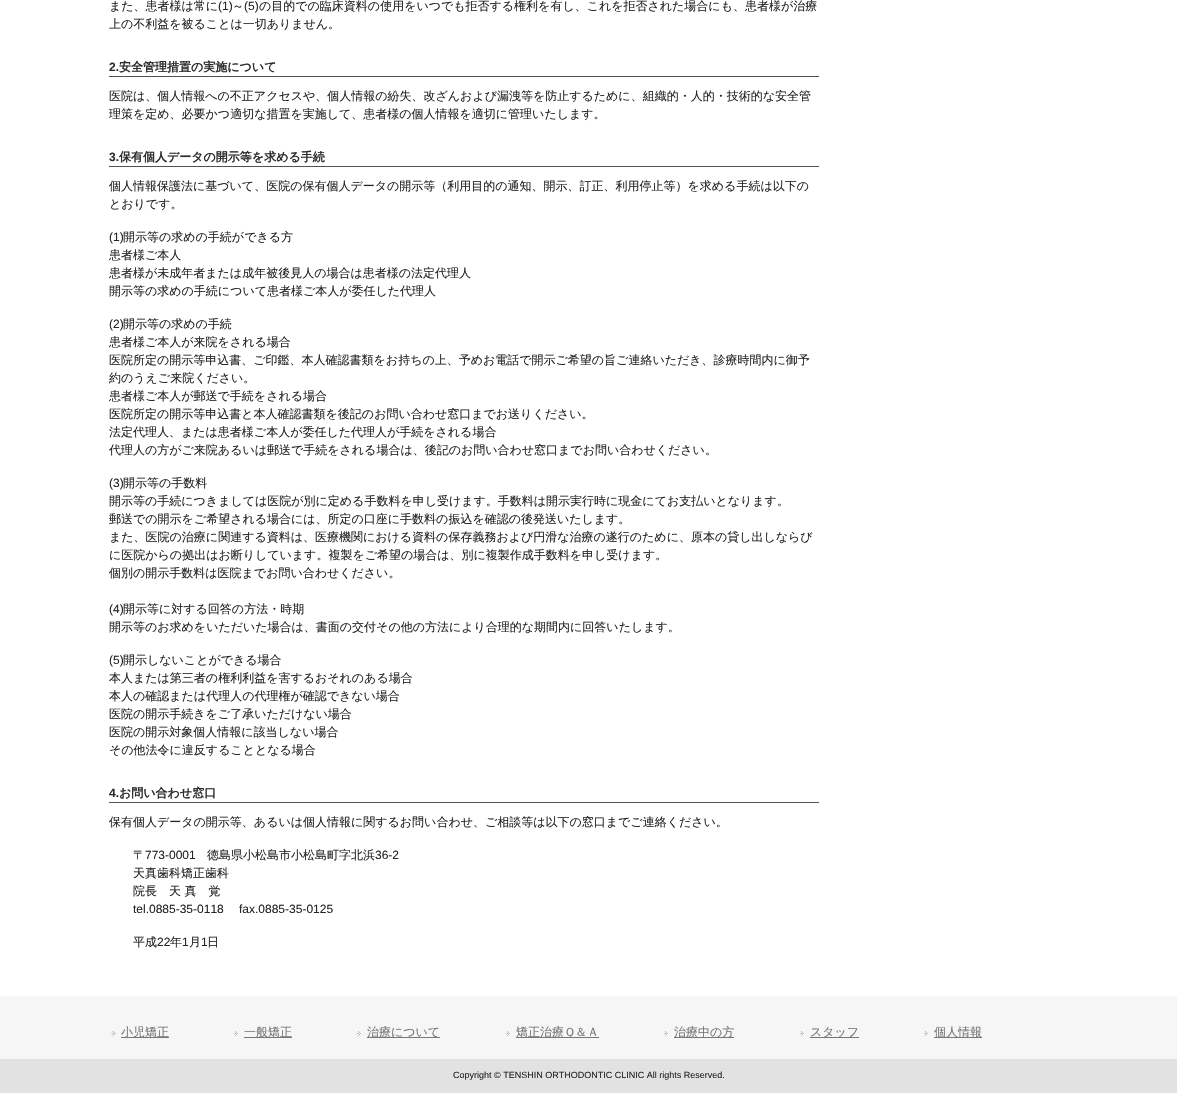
void draw(SkCanvas* canvas) {
  SkPaint paint;
  paint.setAntiAlias(true);
  auto face = [&](const char* family, int weight, float size, bool italic = false) {
    SkFontStyle style(weight, SkFontStyle::kNormal_Width,
      italic ? SkFontStyle::kItalic_Slant : SkFontStyle::kUpright_Slant);
    SkFont result(fontMgr->matchFamilyStyle(family, style), size);
    result.setSubpixel(true);
    return result;
  };
  auto paste = [&](const char* path, float x, float y, float w, float h) {
    auto image = SkImages::DeferredFromEncodedData(SkData::MakeFromFileName(path));
    canvas->drawImageRect(image, SkRect::MakeXYWH(x, y, w, h), SkSamplingOptions());
  };
  canvas->clear(0xffffffff);
  {
    const struct { float x, y, w, h; SkColor color; } items[] = {
      {109, 76, 710, 1, 0xff515151},
      {109, 166, 710, 1, 0xff515151},
      {109, 802, 710, 1, 0xff515151},
      {0, 996, 1177, 63, 0xfff6f6f6},
    };
    for (auto [x, y, w, h, color] : items) {
      paint.setColor(color);
      canvas->drawRect(SkRect::MakeXYWH(x, y, w, h), paint);
    }
  }
  paste("img/1.png", 111, 1031, 5, 5);
  paint.setColor(0xff777777);
  canvas->drawRect(SkRect::MakeXYWH(121, 1037, 48, 1), paint);
  paste("img/2.png", 234, 1031, 4, 5);
  canvas->drawRect(SkRect::MakeXYWH(244, 1037, 48, 1), paint);
  paste("img/2.png", 357, 1031, 4, 5);
  canvas->drawRect(SkRect::MakeXYWH(367, 1037, 73, 1), paint);
  paste("img/2.png", 506, 1031, 4, 5);
  canvas->drawRect(SkRect::MakeXYWH(516, 1037, 83, 1), paint);
  paste("img/2.png", 664, 1031, 4, 5);
  canvas->drawRect(SkRect::MakeXYWH(674, 1037, 60, 1), paint);
  paste("img/2.png", 800, 1031, 4, 5);
  canvas->drawRect(SkRect::MakeXYWH(810, 1037, 49, 1), paint);
  paste("img/2.png", 924, 1031, 4, 5);
  canvas->drawRect(SkRect::MakeXYWH(934, 1037, 48, 1), paint);
  paint.setColor(0xffe2e2e2);
  canvas->drawRect(SkRect::MakeXYWH(0, 1059, 1177, 34), paint);
  auto f0 = face("WenQuanYi Zen Hei", 500, 12);
  paint.setColor(0xff252525);
  canvas->drawString("また、患者様は常に", 109, 10, f0, paint);
  auto f1 = face("Liberation Sans", 400, 12);
  canvas->drawString("(1)", 218, 10, f1, paint);
  canvas->drawString("～", 232, 10, f0, paint);
  canvas->drawString("(5)", 244, 10, f1, paint);
  canvas->drawString("の目的での臨床資料の使用をいつでも拒否する権利を有し、これを拒否された場合にも、患者様が治療", 259, 10, f0, paint);
  canvas->drawString("上の不利益を被ることは一切ありません。", 109, 28, f0, paint);
  auto f2 = face("Liberation Sans", 700, 12);
  paint.setColor(0xff2e2c2c);
  canvas->drawString("2.", 109, 71, f2, paint);
  auto f3 = face("WenQuanYi Zen Hei", 700, 12);
  canvas->drawString("安全管理措置の実施について", 119, 71, f3, paint);
  paint.setColor(0xff252525);
  canvas->drawString("医院は、個人情報への不正アクセスや、個人情報の紛失、改ざんおよび漏洩等を防止するために、組織的・人的・技術的な安全管", 109, 100, f0, paint);
  canvas->drawString("理策を定め、必要かつ適切な措置を実施して、患者様の個人情報を適切に管理いたします。", 109, 118, f0, paint);
  paint.setColor(0xff2e2c2c);
  canvas->drawString("3.", 109, 161, f2, paint);
  canvas->drawString("保有個人データの開示等を求める手続", 119, 161, f3, paint);
  paint.setColor(0xff252525);
  canvas->drawString("個人情報保護法に基づいて、医院の保有個人データの開示等（利用目的の通知、開示、訂正、利用停止等）を求める手続は以下の", 109, 190, f0, paint);
  canvas->drawString("とおりです。", 109, 208, f0, paint);
  canvas->drawString("(1)", 109, 241, f1, paint);
  {
    const struct { const char* s; float x, y; } items[] = {
      {"開示等の求めの手続ができる方", 123, 241},
      {"患者様ご本人", 109, 259},
      {"患者様が未成年者または成年被後見人の場合は患者様の法定代理人", 109, 277},
      {"開示等の求めの手続について患者様ご本人が委任した代理人", 109, 295},
    };
    for (auto [s, x, y] : items) {
      canvas->drawString(s, x, y, f0, paint);
    }
  }
  canvas->drawString("(2)", 109, 328, f1, paint);
  {
    const struct { const char* s; float x, y; } items[] = {
      {"開示等の求めの手続", 123, 328},
      {"患者様ご本人が来院をされる場合", 109, 346},
      {"医院所定の開示等申込書、ご印鑑、本人確認書類をお持ちの上、予めお電話で開示ご希望の旨ご連絡いただき、診療時間内に御予", 109, 364},
      {"約のうえご来院ください。", 109, 382},
      {"患者様ご本人が郵送で手続をされる場合", 109, 400},
      {"医院所定の開示等申込書と本人確認書類を後記のお問い合わせ窓口までお送りください。", 109, 418},
      {"法定代理人、または患者様ご本人が委任した代理人が手続をされる場合", 109, 436},
      {"代理人の方がご来院あるいは郵送で手続をされる場合は、後記のお問い合わせ窓口までお問い合わせください。", 109, 454},
    };
    for (auto [s, x, y] : items) {
      canvas->drawString(s, x, y, f0, paint);
    }
  }
  canvas->drawString("(3)", 109, 487, f1, paint);
  {
    const struct { const char* s; float x, y; } items[] = {
      {"開示等の手数料", 123, 487},
      {"開示等の手続につきましては医院が別に定める手数料を申し受けます。手数料は開示実行時に現金にてお支払いとなります。", 109, 505},
      {"郵送での開示をご希望される場合には、所定の口座に手数料の振込を確認の後発送いたします。", 109, 523},
      {"また、医院の治療に関連する資料は、医療機関における資料の保存義務および円滑な治療の遂行のために、原本の貸し出しならび", 109, 541},
      {"に医院からの拠出はお断りしています。複製をご希望の場合は、別に複製作成手数料を申し受けます。", 109, 559},
      {"個別の開示手数料は医院までお問い合わせください。", 109, 577},
    };
    for (auto [s, x, y] : items) {
      canvas->drawString(s, x, y, f0, paint);
    }
  }
  canvas->drawString("(4)", 109, 613, f1, paint);
  canvas->drawString("開示等に対する回答の方法・時期", 123, 613, f0, paint);
  canvas->drawString("開示等のお求めをいただいた場合は、書面の交付その他の方法により合理的な期間内に回答いたします。", 109, 631, f0, paint);
  canvas->drawString("(5)", 109, 664, f1, paint);
  {
    const struct { const char* s; float x, y; } items[] = {
      {"開示しないことができる場合", 123, 664},
      {"本人または第三者の権利利益を害するおそれのある場合", 109, 682},
      {"本人の確認または代理人の代理権が確認できない場合", 109, 700},
      {"医院の開示手続きをご了承いただけない場合", 109, 718},
      {"医院の開示対象個人情報に該当しない場合", 109, 736},
      {"その他法令に違反することとなる場合", 109, 754},
    };
    for (auto [s, x, y] : items) {
      canvas->drawString(s, x, y, f0, paint);
    }
  }
  paint.setColor(0xff2e2c2c);
  canvas->drawString("4.", 109, 797, f2, paint);
  canvas->drawString("お問い合わせ窓口", 119, 797, f3, paint);
  paint.setColor(0xff252525);
  canvas->drawString("保有個人データの開示等、あるいは個人情報に関するお問い合わせ、ご相談等は以下の窓口までご連絡ください。", 109, 826, f0, paint);
  canvas->drawString("〒", 133, 859, f0, paint);
  canvas->drawString("773-0001", 145, 859, f1, paint);
  canvas->drawString("徳島県小松島市小松島町字北浜", 207, 859, f0, paint);
  canvas->drawString("36-2", 375, 859, f1, paint);
  canvas->drawString("天真歯科矯正歯科", 133, 877, f0, paint);
  canvas->drawString("院長　天 真　覚", 133, 895, f0, paint);
  canvas->drawString("tel.0885-35-0118", 133, 913, f1, paint);
  canvas->drawString("fax.0885-35-0125", 239, 913, f1, paint);
  canvas->drawString("平成", 133, 946, f0, paint);
  canvas->drawString("22", 157, 946, f1, paint);
  canvas->drawString("年", 170, 946, f0, paint);
  canvas->drawString("1", 182, 946, f1, paint);
  canvas->drawString("月", 189, 946, f0, paint);
  canvas->drawString("1", 201, 946, f1, paint);
  canvas->drawString("日", 207, 946, f0, paint);
  paint.setColor(0xff777777);
  {
    const struct { const char* s; float x, y; } items[] = {
      {"小児矯正", 121, 1036},
      {"一般矯正", 244, 1036},
      {"治療について", 367, 1036},
      {"矯正治療Ｑ＆Ａ", 516, 1036},
      {"治療中の方", 674, 1036},
      {"スタッフ", 810, 1036},
      {"個人情報", 934, 1036},
    };
    for (auto [s, x, y] : items) {
      canvas->drawString(s, x, y, f0, paint);
    }
  }
  auto f4 = face("Liberation Sans", 400, 9);
  paint.setColor(0xff252525);
  canvas->drawString("Copyright © TENSHIN ORTHODONTIC CLINIC All rights Reserved.", 453, 1078, f4, paint);
}
